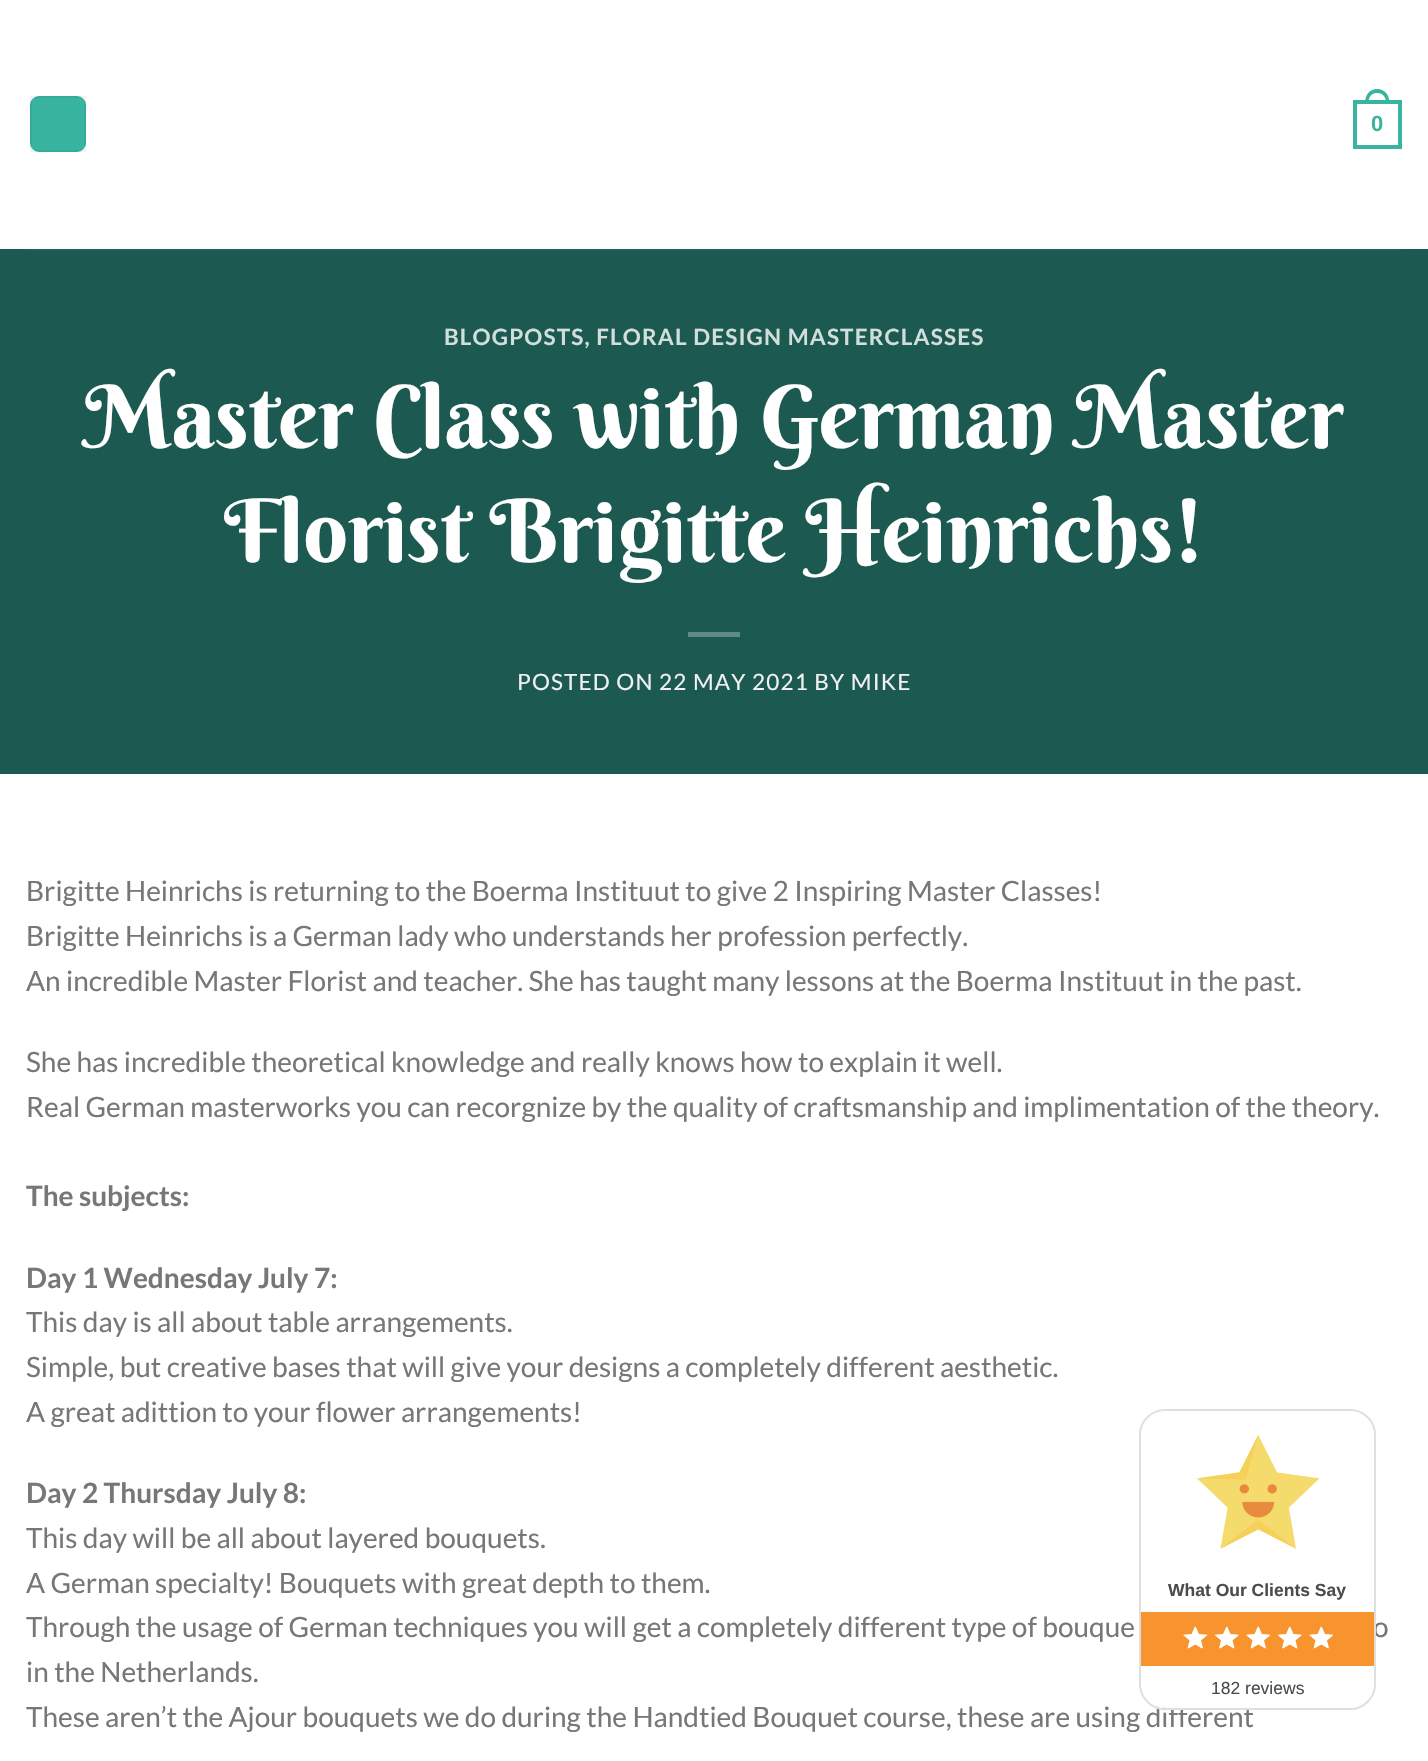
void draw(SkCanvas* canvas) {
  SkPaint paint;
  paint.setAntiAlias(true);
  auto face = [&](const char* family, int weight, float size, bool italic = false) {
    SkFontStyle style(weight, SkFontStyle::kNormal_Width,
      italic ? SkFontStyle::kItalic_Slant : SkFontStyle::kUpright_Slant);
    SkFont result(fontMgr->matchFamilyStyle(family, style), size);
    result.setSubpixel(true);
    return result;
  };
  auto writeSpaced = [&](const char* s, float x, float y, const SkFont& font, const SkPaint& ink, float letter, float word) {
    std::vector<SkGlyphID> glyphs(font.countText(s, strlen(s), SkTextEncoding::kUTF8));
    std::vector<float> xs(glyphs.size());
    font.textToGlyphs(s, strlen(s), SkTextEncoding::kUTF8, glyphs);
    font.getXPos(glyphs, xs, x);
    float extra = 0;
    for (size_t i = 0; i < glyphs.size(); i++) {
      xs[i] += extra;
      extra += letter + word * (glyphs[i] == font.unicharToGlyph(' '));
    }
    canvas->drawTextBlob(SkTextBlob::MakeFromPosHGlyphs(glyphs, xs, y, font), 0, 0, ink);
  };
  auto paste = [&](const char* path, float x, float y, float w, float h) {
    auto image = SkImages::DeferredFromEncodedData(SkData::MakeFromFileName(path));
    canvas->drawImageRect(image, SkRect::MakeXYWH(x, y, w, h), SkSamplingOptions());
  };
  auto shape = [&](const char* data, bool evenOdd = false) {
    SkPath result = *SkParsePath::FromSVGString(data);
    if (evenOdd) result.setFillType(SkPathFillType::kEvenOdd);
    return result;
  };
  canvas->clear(0xffffffff);
  paint.setColor(0xff39b4a1);
  canvas->drawRoundRect(SkRect::MakeXYWH(30, 96, 56, 56), 9, 9, paint);
  paint.setStroke(true);
  paint.setStrokeWidth(2);
  paint.setColor(0x0d000000);
  canvas->drawRect(SkRect::MakeXYWH(31, 97, 54, 54), paint);
  paint.setStrokeWidth(4);
  paint.setColor(0xff39b4a1);
  canvas->drawRect(SkRect::MakeXYWH(1355, 102, 45, 45), paint);
  paint.setStroke(false);
  canvas->drawPath(shape("M1377 89C1385.5 89 1389.5 95.5 1389.5 103H1365C1365 95.5 1369 89 1377 89ZM1377 93C1383.5 93 1386 97.5 1386 103H1368.5C1368.5 97.5 1371 93 1377 93Z", true), paint);
  {
    const struct { float x, y, w, h; SkColor color; } items[] = {
      {0, 249, 1428, 525, 0xff1c5950},
      {26, 249, 1376, 2, 0xff255c54},
      {688, 632, 52, 5, 0xff608b85},
    };
    for (auto [x, y, w, h, color] : items) {
      paint.setColor(color);
      canvas->drawRect(SkRect::MakeXYWH(x, y, w, h), paint);
    }
  }
  auto f0 = face("Liberation Sans", 700, 22);
  paint.setColor(0xff39b4a1);
  canvas->drawString("0", 1371, 131, f0, paint);
  auto f1 = face("Lato", 700, 22.5f);
  paint.setColor(0xffd2dedc);
  writeSpaced("BLOGPOSTS, FLORAL DESIGN MASTERCLASSES", 444, 345, f1, paint, 1.15f, 0);
  auto f2 = face("Berkshire Swash", 400, 87.5f);
  paint.setColor(0xffffffff);
  canvas->drawString("Master Class with German Master", 84, 448, f2, paint);
  canvas->drawString("Florist Brigitte Heinrichs!", 224, 562, f2, paint);
  auto f3 = face("Lato", 400, 22.5f);
  paint.setColor(0xfff1f1f1);
  writeSpaced("POSTED ON 22 MAY 2021 BY MIKE", 517, 690, f3, paint, 1.15f, 0);
  auto f4 = face("Lato", 400, 28);
  paint.setColor(0xff777777);
  {
    const struct { const char* s; float x, y; } items[] = {
      {"Brigitte Heinrichs is returning to the Boerma Instituut to give 2 Inspiring Master Classes!", 26, 901},
      {"Brigitte Heinrichs is a German lady who understands her profession perfectly.", 26, 946},
      {"An incredible Master Florist and teacher. She has taught many lessons at the Boerma Instituut in the past.", 26, 991},
      {"She has incredible theoretical knowledge and really knows how to explain it well.", 26, 1072},
      {"Real German masterworks you can recorgnize by the quality of craftsmanship and implimentation of the theory.", 26, 1117},
    };
    for (auto [s, x, y] : items) {
      canvas->drawString(s, x, y, f4, paint);
    }
  }
  auto f5 = face("Lato", 700, 28);
  canvas->drawString("The subjects:", 26, 1206, f5, paint);
  canvas->drawString("Day 1 Wednesday July 7:", 26, 1288, f5, paint);
  {
    const struct { const char* s; float x, y; } items[] = {
      {"This day is all about table arrangements.", 26, 1332},
      {"Simple, but creative bases that will give your designs a completely different aesthetic.", 26, 1377},
      {"A great adittion to your flower arrangements!", 26, 1422},
    };
    for (auto [s, x, y] : items) {
      canvas->drawString(s, x, y, f4, paint);
    }
  }
  canvas->drawString("Day 2 Thursday July 8:", 26, 1503, f5, paint);
  {
    const struct { const char* s; float x, y; } items[] = {
      {"This day will be all about layered bouquets.", 26, 1548},
      {"A German specialty! Bouquets with great depth to them.", 26, 1593},
      {"Through the usage of German techniques you will get a completely different type of bouque", 26, 1637},
      {"o", 1373, 1637},
      {"in the Netherlands.", 26, 1682},
      {"These aren’t the Ajour bouquets we do during the Handtied Bouquet course, these are using different", 26, 1727},
    };
    for (auto [s, x, y] : items) {
      canvas->drawString(s, x, y, f4, paint);
    }
  }
  paint.setStroke(true);
  paint.setStrokeWidth(2);
  paint.setColor(0xffdfdfdf);
  canvas->drawRoundRect(SkRect::MakeXYWH(1140, 1410, 235, 299), 25, 25, paint);
  paint.setStroke(false);
  paint.setColor(0xffffffff);
  canvas->drawPath(shape("M1166 1411H1349C1363 1411 1374 1422 1374 1436V1612H1141V1436C1141 1422 1152 1411 1166 1411Z"), paint);
  paint.setColor(0xfff8942d);
  canvas->drawRect(SkRect::MakeXYWH(1141, 1612, 233, 54), paint);
  paint.setColor(0xffffffff);
  canvas->drawPath(shape("M1141 1666H1374V1683C1374 1697 1363 1708 1349 1708H1166C1152 1708 1141 1697 1141 1683Z"), paint);
  paste("img/1.png", 1197, 1435, 123, 114);
  auto f6 = face("Liberation Sans", 700, 17.5f);
  paint.setColor(0xff4c4c4c);
  canvas->drawString("What Our Clients Say", 1168, 1596, f6, paint);
  paste("img/2.png", 1183, 1626, 25, 23);
  paste("img/3.png", 1183, 1626, 24, 23);
  paste("img/4.png", 1215, 1626, 24, 23);
  paste("img/5.png", 1215, 1626, 24, 23);
  paste("img/2.png", 1246, 1626, 25, 23);
  paste("img/3.png", 1246, 1626, 24, 23);
  paste("img/4.png", 1278, 1626, 24, 23);
  paste("img/5.png", 1278, 1626, 24, 23);
  paste("img/2.png", 1309, 1626, 25, 23);
  paste("img/6.png", 1309, 1626, 23, 23);
  auto f7 = face("Liberation Sans", 400, 17.5f);
  canvas->drawString("182 reviews", 1211, 1694, f7, paint);
}
